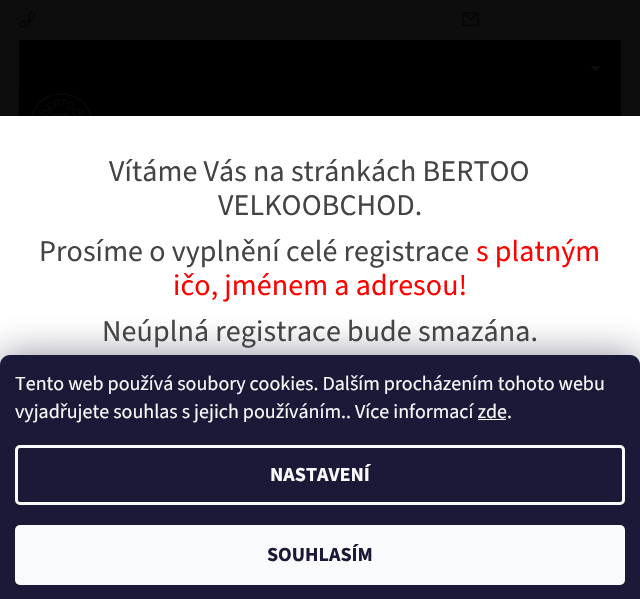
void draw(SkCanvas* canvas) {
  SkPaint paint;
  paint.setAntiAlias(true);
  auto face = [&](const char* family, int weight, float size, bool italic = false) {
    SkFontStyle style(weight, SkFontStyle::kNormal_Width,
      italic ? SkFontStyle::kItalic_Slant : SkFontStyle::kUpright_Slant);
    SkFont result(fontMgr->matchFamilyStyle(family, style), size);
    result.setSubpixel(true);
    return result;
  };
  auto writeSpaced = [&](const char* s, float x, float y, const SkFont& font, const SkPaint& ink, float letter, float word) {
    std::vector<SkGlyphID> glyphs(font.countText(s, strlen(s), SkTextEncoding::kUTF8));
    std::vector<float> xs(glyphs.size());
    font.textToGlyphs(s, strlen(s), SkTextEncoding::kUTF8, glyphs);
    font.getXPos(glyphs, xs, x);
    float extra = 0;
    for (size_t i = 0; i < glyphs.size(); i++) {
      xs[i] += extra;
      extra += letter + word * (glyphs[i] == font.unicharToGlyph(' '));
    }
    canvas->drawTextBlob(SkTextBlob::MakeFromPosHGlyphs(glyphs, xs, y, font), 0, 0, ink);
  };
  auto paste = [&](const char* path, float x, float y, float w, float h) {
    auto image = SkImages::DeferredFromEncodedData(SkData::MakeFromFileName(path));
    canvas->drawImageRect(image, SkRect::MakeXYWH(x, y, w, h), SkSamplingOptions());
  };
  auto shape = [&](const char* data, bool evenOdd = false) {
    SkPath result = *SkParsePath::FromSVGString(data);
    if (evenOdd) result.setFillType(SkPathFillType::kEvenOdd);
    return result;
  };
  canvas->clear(0xff0d0d0d);
  paste("img/1.png", 18, 11, 17, 17);
  paste("img/2.png", 462, 12, 17, 14);
  paint.setColor(0xff000000);
  canvas->drawRect(SkRect::MakeXYWH(19, 40, 602, 76), paint);
  paint.setColor(0xff0d0d0d);
  canvas->drawPath(shape("M595.5 66H600L595.5 71L591 66Z"), paint);
  paste("img/3.png", 18, 90, 75, 26);
  paint.setColor(0xffffffff);
  canvas->drawRect(SkRect::MakeXYWH(0, 116, 640, 249), paint);
  paint.setColor(0x801b1939);
  paint.setMaskFilter(SkMaskFilter::MakeBlur(kNormal_SkBlurStyle, 19));
  canvas->drawRoundRect(SkRect::MakeXYWH(0, 355, 640, 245), 10, 10, paint);
  paint.setMaskFilter(nullptr);
  paint.setColor(0xff1a1937);
  canvas->drawPath(shape("M10 355H630C635.5 355 640 359.5 640 365V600H0V365C0 359.5 4.5 355 10 355Z"), paint);
  paint.setColor(0xfff8fafb);
  canvas->drawRect(SkRect::MakeXYWH(478, 419, 28, 1), paint);
  paint.setStroke(true);
  paint.setStrokeWidth(3);
  canvas->drawRoundRect(SkRect::MakeXYWH(16.5f, 446.5f, 607, 57), 3.5f, 3.5f, paint);
  paint.setStroke(false);
  canvas->drawRoundRect(SkRect::MakeXYWH(15, 525, 610, 60), 5, 5, paint);
  auto f0 = face("Source Sans 3", 400, 30);
  paint.setColor(0xff444444);
  {
    const struct { const char* s; float x, y; } items[] = {
      {"Vítáme Vás na stránkách BERTOO", 109, 181},
      {"VELKOOBCHOD.", 218, 215},
      {"Prosíme o vyplnění celé registrace", 39, 261},
    };
    for (auto [s, x, y] : items) {
      writeSpaced(s, x, y, f0, paint, 0.1f, 0);
    }
  }
  paint.setColor(0xffff0000);
  writeSpaced("s platným", 476, 261, f0, paint, 0.1f, 0);
  writeSpaced("ičo, jménem a adresou!", 173, 295, f0, paint, 0.1f, 0);
  paint.setColor(0xff444444);
  writeSpaced("Neúplná registrace bude smazána.", 102, 341, f0, paint, 0.1f, 0);
  auto f1 = face("Source Sans 3", 400, 20);
  paint.setColor(0xfff8fafb);
  canvas->drawString("Tento web používá soubory cookies. Dalším procházením tohoto webu", 15, 390, f1, paint);
  canvas->drawString("vyjadřujete souhlas s jejich používáním.. Více informací zde.", 15, 418, f1, paint);
  auto f2 = face("Source Sans 3", 700, 20);
  canvas->drawString("NASTAVENÍ", 270, 481, f2, paint);
  paint.setColor(0xff1a1937);
  canvas->drawString("SOUHLASÍM", 267, 561, f2, paint);
}
